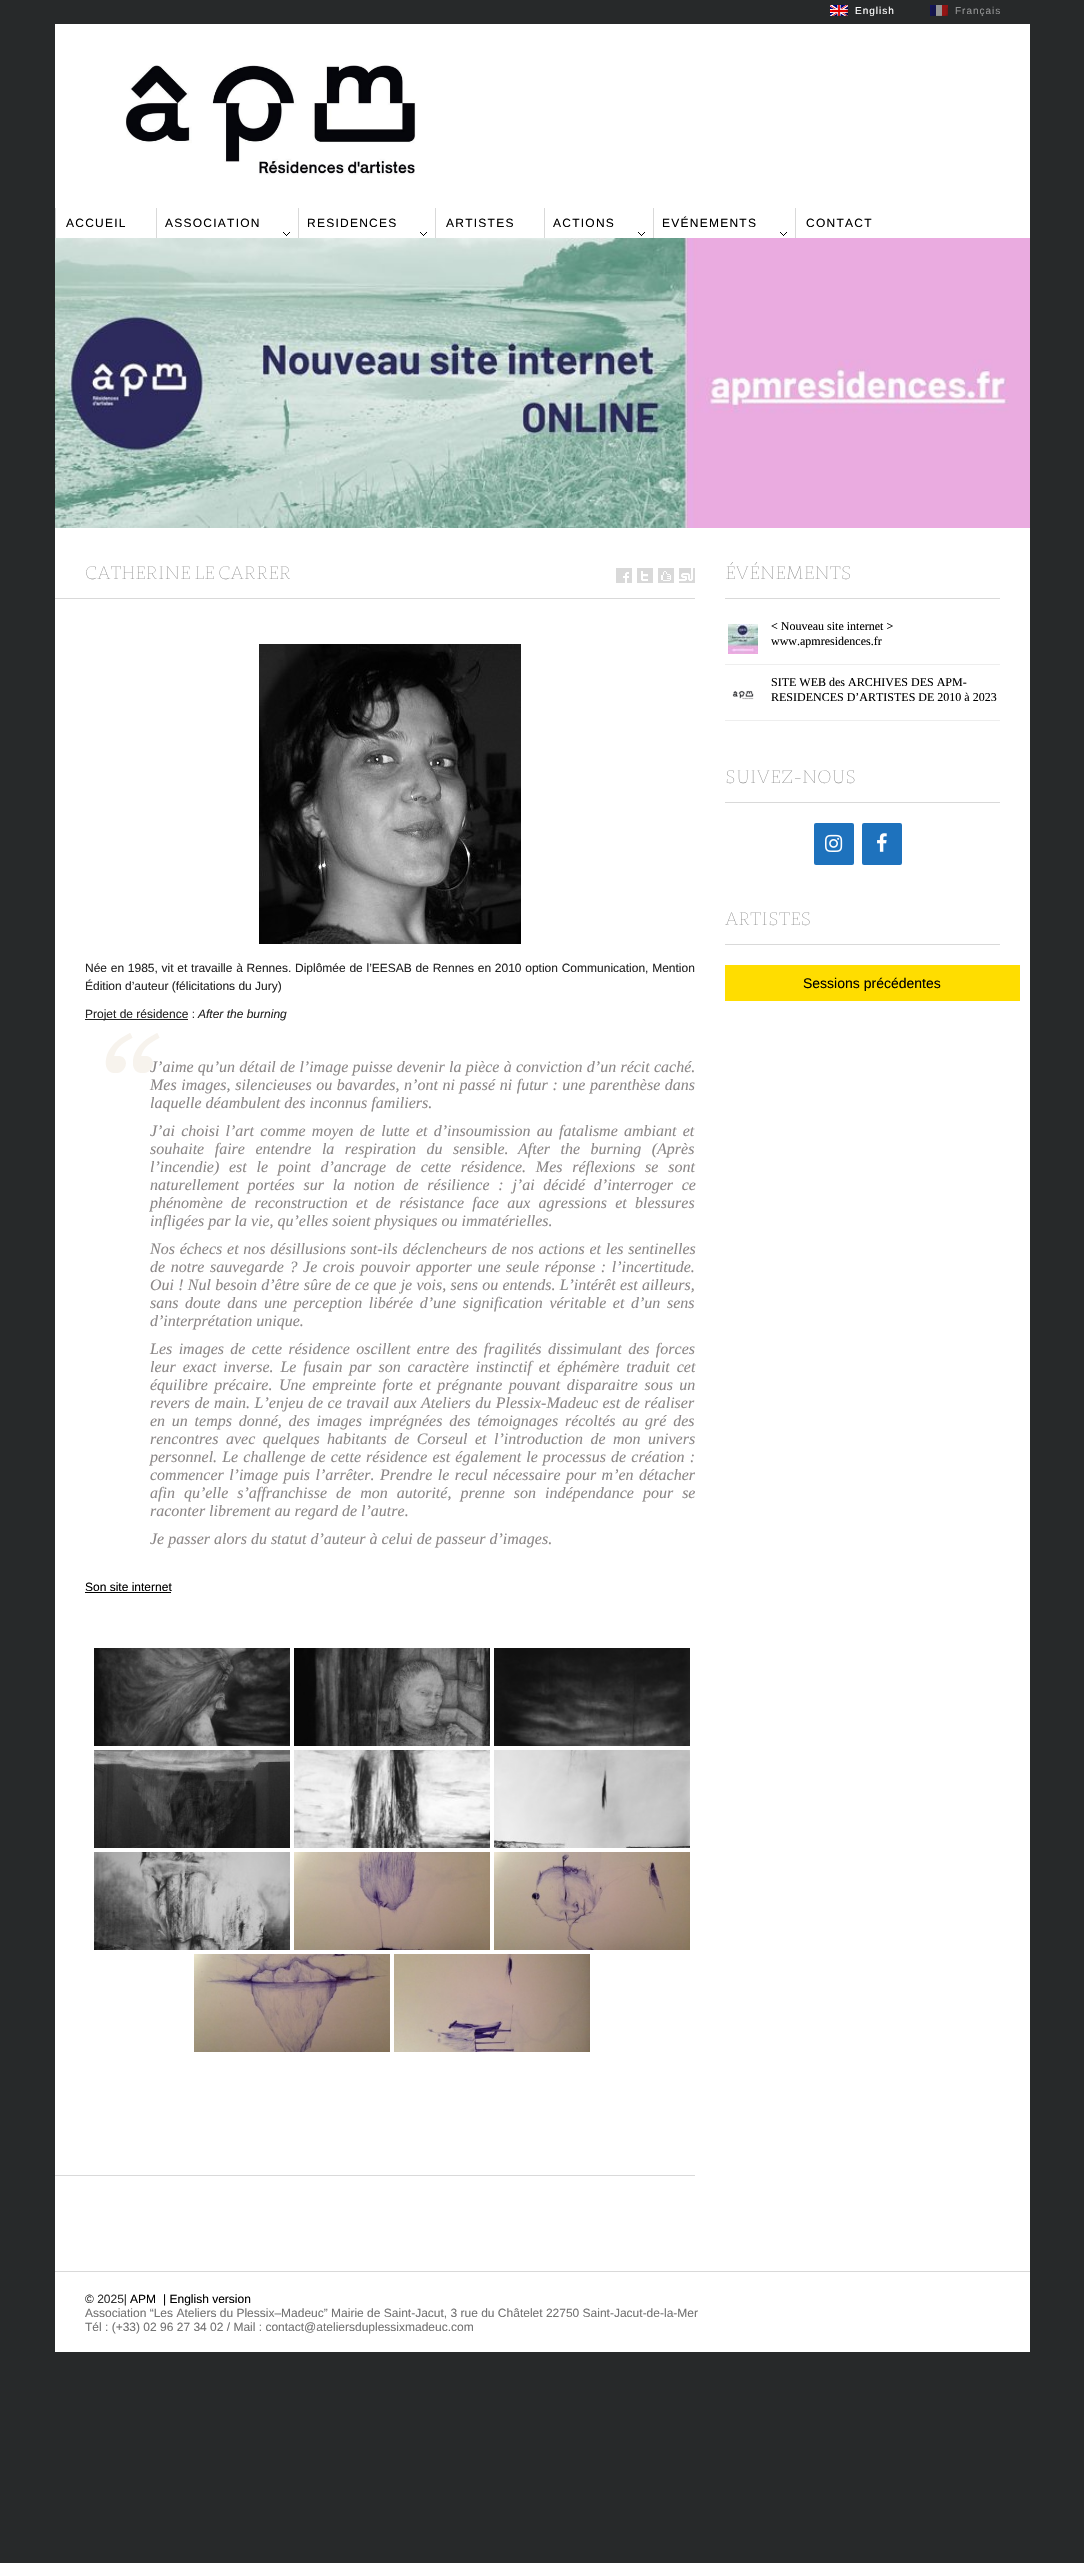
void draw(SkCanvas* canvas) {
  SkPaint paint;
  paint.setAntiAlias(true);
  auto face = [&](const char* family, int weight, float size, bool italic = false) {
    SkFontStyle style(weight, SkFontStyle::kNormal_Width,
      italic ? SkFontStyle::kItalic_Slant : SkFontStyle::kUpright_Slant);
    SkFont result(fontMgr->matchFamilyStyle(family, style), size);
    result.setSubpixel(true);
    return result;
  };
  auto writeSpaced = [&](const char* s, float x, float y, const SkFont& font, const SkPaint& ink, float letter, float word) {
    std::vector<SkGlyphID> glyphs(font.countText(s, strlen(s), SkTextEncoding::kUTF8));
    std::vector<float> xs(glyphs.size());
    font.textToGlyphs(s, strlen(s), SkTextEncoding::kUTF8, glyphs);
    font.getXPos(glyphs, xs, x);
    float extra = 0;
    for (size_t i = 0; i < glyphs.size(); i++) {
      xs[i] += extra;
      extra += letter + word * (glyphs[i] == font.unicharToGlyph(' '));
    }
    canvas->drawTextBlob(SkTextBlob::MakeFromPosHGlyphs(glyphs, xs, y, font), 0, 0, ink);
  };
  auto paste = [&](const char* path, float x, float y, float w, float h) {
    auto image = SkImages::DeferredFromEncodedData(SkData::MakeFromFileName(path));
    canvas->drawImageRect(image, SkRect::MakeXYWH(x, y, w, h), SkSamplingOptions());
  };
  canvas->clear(0xff27292a);
  paint.setColor(0xffffffff);
  canvas->drawRect(SkRect::MakeXYWH(55, 24, 975, 2328), paint);
  paste("img/1.png", 830, 5, 18, 11);
  paste("img/2.png", 930, 5, 18, 11);
  paste("img/3.png", 125, 65, 291, 110);
  paint.setColor(0xffd9d9d9);
  canvas->drawRect(SkRect::MakeXYWH(55, 208, 1, 30), paint);
  canvas->drawRect(SkRect::MakeXYWH(156, 208, 1, 30), paint);
  paste("img/4.png", 283, 232, 7, 4);
  canvas->drawRect(SkRect::MakeXYWH(298, 208, 1, 30), paint);
  paste("img/4.png", 420, 232, 7, 4);
  canvas->drawRect(SkRect::MakeXYWH(435, 208, 1, 30), paint);
  canvas->drawRect(SkRect::MakeXYWH(544, 208, 1, 30), paint);
  paste("img/4.png", 638, 232, 7, 4);
  canvas->drawRect(SkRect::MakeXYWH(653, 208, 1, 30), paint);
  paste("img/4.png", 780, 232, 7, 4);
  canvas->drawRect(SkRect::MakeXYWH(795, 208, 1, 30), paint);
  paste("img/5.png", 55, 238, 975, 290);
  canvas->drawRect(SkRect::MakeXYWH(55, 598, 640, 1), paint);
  paste("img/6.png", 616, 568, 16, 15);
  paste("img/7.png", 637, 568, 16, 15);
  paste("img/8.png", 658, 568, 16, 15);
  paste("img/9.png", 679, 568, 16, 15);
  canvas->drawRect(SkRect::MakeXYWH(55, 2175, 640, 1), paint);
  paste("img/10.png", 259, 644, 262, 300);
  paint.setColor(0xff262626);
  canvas->drawRect(SkRect::MakeXYWH(85, 1019, 103, 1), paint);
  paste("img/11.png", 105, 1033, 55, 40);
  paint.setColor(0xff000000);
  canvas->drawRect(SkRect::MakeXYWH(85, 1592, 86, 1), paint);
  paste("img/12.png", 94, 1648, 196, 98);
  paste("img/13.png", 294, 1648, 196, 98);
  paste("img/14.png", 494, 1648, 196, 98);
  paste("img/15.png", 94, 1750, 196, 98);
  paste("img/16.png", 294, 1750, 196, 98);
  paste("img/17.png", 494, 1750, 196, 98);
  paste("img/18.png", 94, 1852, 196, 98);
  paste("img/19.png", 294, 1852, 196, 98);
  paste("img/20.png", 494, 1852, 196, 98);
  paste("img/21.png", 194, 1954, 196, 98);
  paste("img/22.png", 394, 1954, 196, 98);
  paint.setColor(0xffd9d9d9);
  canvas->drawRect(SkRect::MakeXYWH(725, 598, 275, 1), paint);
  paint.setColor(0xffeeeeee);
  canvas->drawRect(SkRect::MakeXYWH(725, 664, 275, 1), paint);
  paste("img/23.png", 728, 624, 30, 30);
  canvas->drawRect(SkRect::MakeXYWH(725, 720, 275, 1), paint);
  paste("img/24.png", 732, 690, 22, 10);
  paint.setColor(0xffd9d9d9);
  canvas->drawRect(SkRect::MakeXYWH(725, 802, 275, 1), paint);
  paint.setColor(0xff1e72bd);
  canvas->drawRoundRect(SkRect::MakeXYWH(814, 823, 40, 42), 2, 2, paint);
  paste("img/25.png", 825, 834, 18, 18);
  canvas->drawRoundRect(SkRect::MakeXYWH(862, 823, 40, 42), 2, 2, paint);
  paste("img/26.png", 877, 833, 10, 19);
  {
    const struct { float x, y, w, h; SkColor color; } items[] = {
      {725, 944, 275, 1, 0xffd9d9d9},
      {725, 965, 295, 36, 0xffffdd00},
      {55, 2271, 975, 1, 0xffd9d9d9},
    };
    for (auto [x, y, w, h, color] : items) {
      paint.setColor(color);
      canvas->drawRect(SkRect::MakeXYWH(x, y, w, h), paint);
    }
  }
  auto f0 = face("Liberation Sans", 400, 10);
  paint.setColor(0xffffffff);
  writeSpaced("English", 855, 14, f0, paint, 1, 0);
  paint.setColor(0xff939495);
  writeSpaced("Français", 955, 14, f0, paint, 1, 0);
  auto f1 = face("Liberation Sans", 400, 12);
  paint.setColor(0xff000000);
  {
    const struct { const char* s; float x, y; } items[] = {
      {"ACCUEIL", 66, 227},
      {"ASSOCIATION", 165, 227},
      {"RESIDENCES", 307, 227},
      {"ARTISTES", 446, 227},
      {"ACTIONS", 553, 227},
      {"EVÉNEMENTS", 662, 227},
      {"CONTACT", 806, 227},
    };
    for (auto [s, x, y] : items) {
      writeSpaced(s, x, y, f1, paint, 1.25f, 0);
    }
  }
  auto f2 = face("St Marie", 100, 18);
  paint.setColor(0xff797979);
  canvas->drawString("CATHERINE LE CARRER", 85, 579, f2, paint);
  paint.setColor(0xff262626);
  writeSpaced("Née en 1985, vit et travaille à Rennes. Diplômée de l’EESAB de Rennes en 2010 option Communication, Mention", 85, 972, f1, paint, 0, 0.4f);
  canvas->drawString("Édition d’auteur (félicitations du Jury)", 85, 990, f1, paint);
  canvas->drawString("Projet de résidence :", 85, 1018, f1, paint);
  auto f3 = face("Liberation Sans", 400, 12, true);
  canvas->drawString("After the burning", 198, 1018, f3, paint);
  auto f4 = face("Liberation Serif", 400, 16, true);
  paint.setColor(0xff8c8888);
  writeSpaced("J’aime qu’un détail de l’image puisse devenir la pièce à conviction d’un récit caché.", 150, 1072, f4, paint, 0, 0.25f);
  writeSpaced("Mes images, silencieuses ou bavardes, n’ont ni passé ni futur : une parenthèse dans", 150, 1090, f4, paint, 0, 0.6f);
  canvas->drawString("laquelle déambulent des inconnus familiers.", 150, 1108, f4, paint);
  writeSpaced("J’ai choisi l’art comme moyen de lutte et d’insoumission au fatalisme ambiant et", 150, 1136, f4, paint, 0, 2.25f);
  writeSpaced("souhaite faire entendre la respiration du sensible.", 150, 1154, f4, paint, 0, 6.5f);
  writeSpaced("After the burning (Après", 518, 1154, f4, paint, 0, 6.5f);
  canvas->drawString("l’incendie)", 150, 1172, f4, paint);
  writeSpaced("est le point d’ancrage de cette résidence. Mes réflexions se sont", 229, 1172, f4, paint, 0, 5.75f);
  writeSpaced("naturellement portées sur la notion de résilience : j’ai décidé d’interroger ce", 150, 1190, f4, paint, 0, 4.75f);
  writeSpaced("phénomène de reconstruction et de résistance face aux agressions et blessures", 150, 1208, f4, paint, 0, 4.25f);
  canvas->drawString("infligées par la vie, qu’elles soient physiques ou immatérielles.", 150, 1226, f4, paint);
  writeSpaced("Nos échecs et nos désillusions sont-ils déclencheurs de nos actions et les sentinelles", 150, 1254, f4, paint, 0, 0.75f);
  writeSpaced("de notre sauvegarde ? Je crois pouvoir apporter une seule réponse : l’incertitude.", 150, 1272, f4, paint, 0, 1.6f);
  writeSpaced("Oui ! Nul besoin d’être sûre de ce que je vois, sens ou entends. L’intérêt est ailleurs,", 150, 1290, f4, paint, 0, 0.25f);
  writeSpaced("sans doute dans une perception libérée d’une signification véritable et d’un sens", 150, 1308, f4, paint, 0, 2.6f);
  canvas->drawString("d’interprétation unique.", 150, 1326, f4, paint);
  writeSpaced("Les images de cette résidence oscillent entre des fragilités dissimulant des forces", 150, 1354, f4, paint, 0, 2.4f);
  writeSpaced("leur exact inverse. Le fusain par son caractère instinctif et éphémère traduit cet", 150, 1372, f4, paint, 0, 2.9f);
  writeSpaced("équilibre précaire. Une empreinte forte et prégnante pouvant disparaitre sous un", 150, 1390, f4, paint, 0, 2.5f);
  writeSpaced("revers de main. L’enjeu de ce travail aux Ateliers du Plessix-Madeuc est de réaliser", 150, 1408, f4, paint, 0, 0.5f);
  writeSpaced("en un temps donné, des images imprégnées des témoignages récoltés au gré des", 150, 1426, f4, paint, 0, 2.75f);
  writeSpaced("rencontres avec quelques habitants de Corseul et l’introduction de mon univers", 150, 1444, f4, paint, 0, 3.5f);
  writeSpaced("personnel. Le challenge de cette résidence est également le processus de création :", 150, 1462, f4, paint, 0, 1.1f);
  writeSpaced("commencer l’image puis l’arrêter. Prendre le recul nécessaire pour m’en détacher", 150, 1480, f4, paint, 0, 1.4f);
  writeSpaced("afin qu’elle s’affranchisse de mon autorité, prenne son indépendance pour se", 150, 1498, f4, paint, 0, 5);
  canvas->drawString("raconter librement au regard de l’autre.", 150, 1516, f4, paint);
  canvas->drawString("Je passer alors du statut d’auteur à celui de passeur d’images.", 150, 1544, f4, paint);
  paint.setColor(0xff000000);
  canvas->drawString("Son site internet", 85, 1591, f1, paint);
  paint.setColor(0xff797979);
  canvas->drawString("ÉVÉNEMENTS", 725, 579, f2, paint);
  auto f5 = face("Liberation Serif", 400, 12);
  paint.setColor(0xff000000);
  {
    const struct { const char* s; float x, y; } items[] = {
      {"< Nouveau site internet >", 771, 630},
      {"www.apmresidences.fr", 771, 645},
      {"SITE WEB des ARCHIVES DES APM-", 771, 686},
      {"RESIDENCES D’ARTISTES DE 2010 à 2023", 771, 701},
    };
    for (auto [s, x, y] : items) {
      canvas->drawString(s, x, y, f5, paint);
    }
  }
  paint.setColor(0xff797979);
  canvas->drawString("SUIVEZ-NOUS", 725, 783, f2, paint);
  canvas->drawString("ARTISTES", 725, 925, f2, paint);
  auto f6 = face("Liberation Sans", 400, 14);
  paint.setColor(0xff000000);
  canvas->drawString("Sessions précédentes", 803, 988, f6, paint);
  paint.setColor(0xff333333);
  canvas->drawString("© 2025|", 85, 2303, f1, paint);
  paint.setColor(0xff000000);
  canvas->drawString("APM", 130, 2303, f1, paint);
  canvas->drawString("| English version", 163, 2303, f1, paint);
  paint.setColor(0xff737373);
  canvas->drawString("Association “Les Ateliers du Plessix–Madeuc” Mairie de Saint-Jacut, 3 rue du Châtelet 22750 Saint-Jacut-de-la-Mer", 85, 2317, f1, paint);
  canvas->drawString("Tél : (+33) 02 96 27 34 02 / Mail : contact@ateliersduplessixmadeuc.com", 85, 2331, f1, paint);
}
